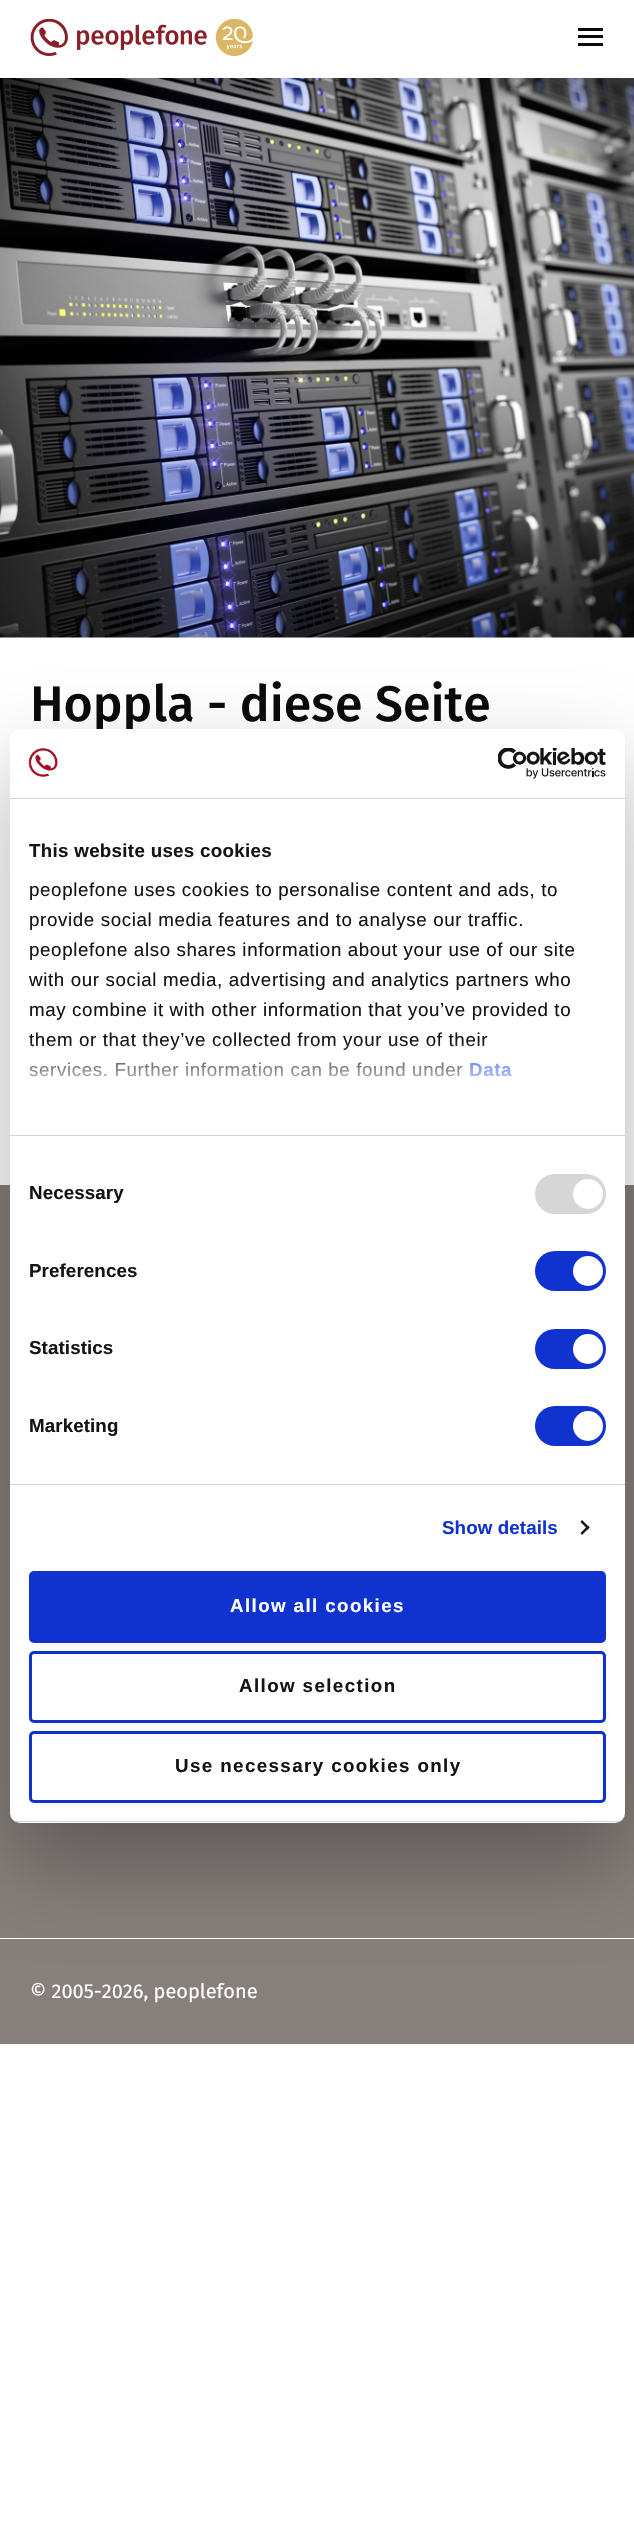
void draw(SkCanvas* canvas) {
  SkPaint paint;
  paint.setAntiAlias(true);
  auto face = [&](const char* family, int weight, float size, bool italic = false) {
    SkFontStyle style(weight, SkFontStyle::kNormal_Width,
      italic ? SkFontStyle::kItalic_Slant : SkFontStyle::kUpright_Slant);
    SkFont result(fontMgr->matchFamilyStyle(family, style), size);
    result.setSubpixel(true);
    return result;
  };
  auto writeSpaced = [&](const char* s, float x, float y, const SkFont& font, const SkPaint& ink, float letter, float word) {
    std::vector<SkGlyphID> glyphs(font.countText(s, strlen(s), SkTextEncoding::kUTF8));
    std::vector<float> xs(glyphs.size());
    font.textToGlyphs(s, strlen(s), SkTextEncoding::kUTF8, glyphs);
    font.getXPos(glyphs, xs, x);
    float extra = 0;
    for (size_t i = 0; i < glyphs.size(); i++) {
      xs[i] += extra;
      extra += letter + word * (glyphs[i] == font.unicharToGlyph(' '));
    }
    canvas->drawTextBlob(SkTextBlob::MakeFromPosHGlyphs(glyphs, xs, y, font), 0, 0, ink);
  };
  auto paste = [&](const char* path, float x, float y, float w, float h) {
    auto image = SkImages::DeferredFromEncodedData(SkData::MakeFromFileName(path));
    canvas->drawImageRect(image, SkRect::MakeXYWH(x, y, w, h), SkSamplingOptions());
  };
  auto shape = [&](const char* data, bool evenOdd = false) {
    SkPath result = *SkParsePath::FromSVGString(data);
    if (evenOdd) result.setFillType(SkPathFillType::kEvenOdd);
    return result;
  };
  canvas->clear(0xffffffff);
  paste("img/1.png", 30, 19, 223, 37);
  {
    const struct { float x, y, w, h; SkColor color; } items[] = {
      {578, 28, 25, 3, 0xff0a0a0a},
      {578, 35, 25, 3, 0xff0a0a0a},
      {578, 43, 25, 3, 0xff0a0a0a},
    };
    for (auto [x, y, w, h, color] : items) {
      paint.setColor(color);
      canvas->drawRect(SkRect::MakeXYWH(x, y, w, h), paint);
    }
  }
  paste("img/2.png", 0, 78, 634, 560);
  paint.setColor(0xff867f7c);
  canvas->drawRect(SkRect::MakeXYWH(0, 1185, 634, 753), paint);
  canvas->drawRect(SkRect::MakeXYWH(0, 1939, 634, 105), paint);
  paint.setColor(0x4d000000);
  paint.setMaskFilter(SkMaskFilter::MakeBlur(kNormal_SkBlurStyle, 42.5f));
  canvas->drawRoundRect(SkRect::MakeXYWH(10, 769, 615, 1094), 10, 10, paint);
  paint.setMaskFilter(nullptr);
  auto f0 = face("Fira Sans", 500, 50);
  paint.setColor(0xff0a0a0a);
  canvas->drawString("Hoppla - diese Seite", 30, 721, f0, paint);
  paint.setColor(0xffffffff);
  canvas->drawRoundRect(SkRect::MakeXYWH(10, 729, 615, 1094), 10, 10, paint);
  paint.setColor(0xffd6d6d6);
  canvas->drawRect(SkRect::MakeXYWH(10, 798, 615, 1), paint);
  paste("img/3.png", 28, 748, 30, 29);
  paste("img/4.png", 498, 748, 108, 31);
  canvas->drawRect(SkRect::MakeXYWH(10, 1135, 615, 1), paint);
  auto f1 = face("Liberation Sans", 700, 18.75f);
  paint.setColor(0xff141414);
  writeSpaced("This website uses cookies", 29, 857, f1, paint, 0.3f, 0);
  auto f2 = face("Liberation Sans", 400, 18.75f);
  {
    const struct { const char* s; float x, y; } items[] = {
      {"peoplefone uses cookies to personalise content and ads, to", 29, 896},
      {"provide social media features and to analyse our traffic.", 29, 926},
      {"peoplefone also shares information about your use of our site", 29, 956},
      {"with our social media, advertising and analytics partners who", 29, 986},
      {"may combine it with other information that you’ve provided to", 29, 1016},
      {"them or that they’ve collected from your use of their", 29, 1046},
      {"services. Further information can be found under", 29, 1076},
    };
    for (auto [s, x, y] : items) {
      writeSpaced(s, x, y, f2, paint, 0.62f, 0);
    }
  }
  paint.setColor(0xff2a4eef);
  writeSpaced("Data", 469, 1076, f1, paint, 0.62f, 0);
  {
    const SkColor colors[] = {0xffffffff, 0xccffffff, 0x00ffffff};
    const float stops[] = {0, 0.5f, 1};
    const SkPoint ends[] = {{309, 1134}, {309, 1041}};
    paint.setShader(SkGradientShader::MakeLinear(ends, colors, stops, 3, SkTileMode::kClamp));
    paint.setAlpha(255);
  }
  canvas->drawRect(SkRect::MakeXYWH(29, 1042, 483, 35), paint);
  paint.setShader(nullptr);
  paint.setColor(0xffd6d6d6);
  canvas->drawRect(SkRect::MakeXYWH(10, 1484, 615, 1), paint);
  paint.setColor(0xff141414);
  writeSpaced("Necessary", 29, 1199, f1, paint, 0.1f, 0);
  paint.setColor(0xffd6d6d6);
  canvas->drawRoundRect(SkRect::MakeXYWH(535, 1174, 71, 40), 20, 20, paint);
  paint.setColor(0xffffffff);
  canvas->drawCircle(588, 1194, 15, paint);
  paint.setColor(0xff141414);
  writeSpaced("Preferences", 29, 1277, f1, paint, 0.1f, 0);
  paint.setColor(0xff1032cf);
  canvas->drawRoundRect(SkRect::MakeXYWH(535, 1251, 71, 40), 20, 20, paint);
  paint.setColor(0xffffffff);
  canvas->drawCircle(588, 1271, 15, paint);
  paint.setColor(0xff141414);
  writeSpaced("Statistics", 29, 1354, f1, paint, 0.1f, 0);
  paint.setColor(0xff1032cf);
  canvas->drawRoundRect(SkRect::MakeXYWH(535, 1329, 71, 40), 20, 20, paint);
  paint.setColor(0xffffffff);
  canvas->drawCircle(588, 1349, 15, paint);
  paint.setColor(0xff141414);
  writeSpaced("Marketing", 29, 1432, f1, paint, 0.1f, 0);
  paint.setColor(0xff1032cf);
  canvas->drawRoundRect(SkRect::MakeXYWH(535, 1406, 71, 40), 20, 20, paint);
  paint.setColor(0xffffffff);
  canvas->drawCircle(588, 1426, 15, paint);
  paint.setColor(0xff1032cf);
  writeSpaced("Show details", 442, 1534, f1, paint, 0.1f, 0);
  paint.setColor(0xff141414);
  canvas->drawPath(shape("M582 1520L589.5 1527.5L588 1529.5L580.5 1522Z"), paint);
  canvas->drawPath(shape("M588 1525.5L589.5 1527.5L582 1535L580.5 1533Z"), paint);
  canvas->save();
  canvas->clipPath(shape("M20 729H615C620.5 729 625 733.5 625 739V1813C625 1818.5 620.5 1823 615 1823H20C14.5 1823 10 1818.5 10 1813V739C10 733.5 14.5 729 20 729Z"), true);
  paint.setColor(0xffd6d6d6);
  canvas->drawRect(SkRect::MakeXYWH(10, 1821, 615, 1), paint);
  canvas->restore();
  paint.setColor(0xff1032cf);
  canvas->drawRoundRect(SkRect::MakeXYWH(30.5f, 1572.5f, 574, 69), 3.5f, 3.5f, paint);
  paint.setStroke(true);
  paint.setStrokeWidth(3);
  canvas->drawRoundRect(SkRect::MakeXYWH(30.5f, 1572.5f, 574, 69), 3.5f, 3.5f, paint);
  paint.setStroke(false);
  paint.setColor(0xffffffff);
  writeSpaced("Allow all cookies", 230, 1612, f1, paint, 1.4f, 0);
  paint.setStroke(true);
  paint.setColor(0xff1032cf);
  canvas->drawRoundRect(SkRect::MakeXYWH(30.5f, 1652.5f, 574, 69), 3.5f, 3.5f, paint);
  paint.setStroke(false);
  paint.setColor(0xff141414);
  writeSpaced("Allow selection", 239, 1692, f1, paint, 1.4f, 0);
  paint.setStroke(true);
  paint.setColor(0xff1032cf);
  canvas->drawRoundRect(SkRect::MakeXYWH(30.5f, 1732.5f, 574, 69), 3.5f, 3.5f, paint);
  paint.setStroke(false);
  paint.setColor(0xff141414);
  writeSpaced("Use necessary cookies only", 175, 1772, f1, paint, 1.4f, 0);
  auto f3 = face("Fira Sans", 400, 20);
  paint.setColor(0xffffffff);
  canvas->drawString("© 2005-2026, peoplefone", 30, 1998, f3, paint);
}
